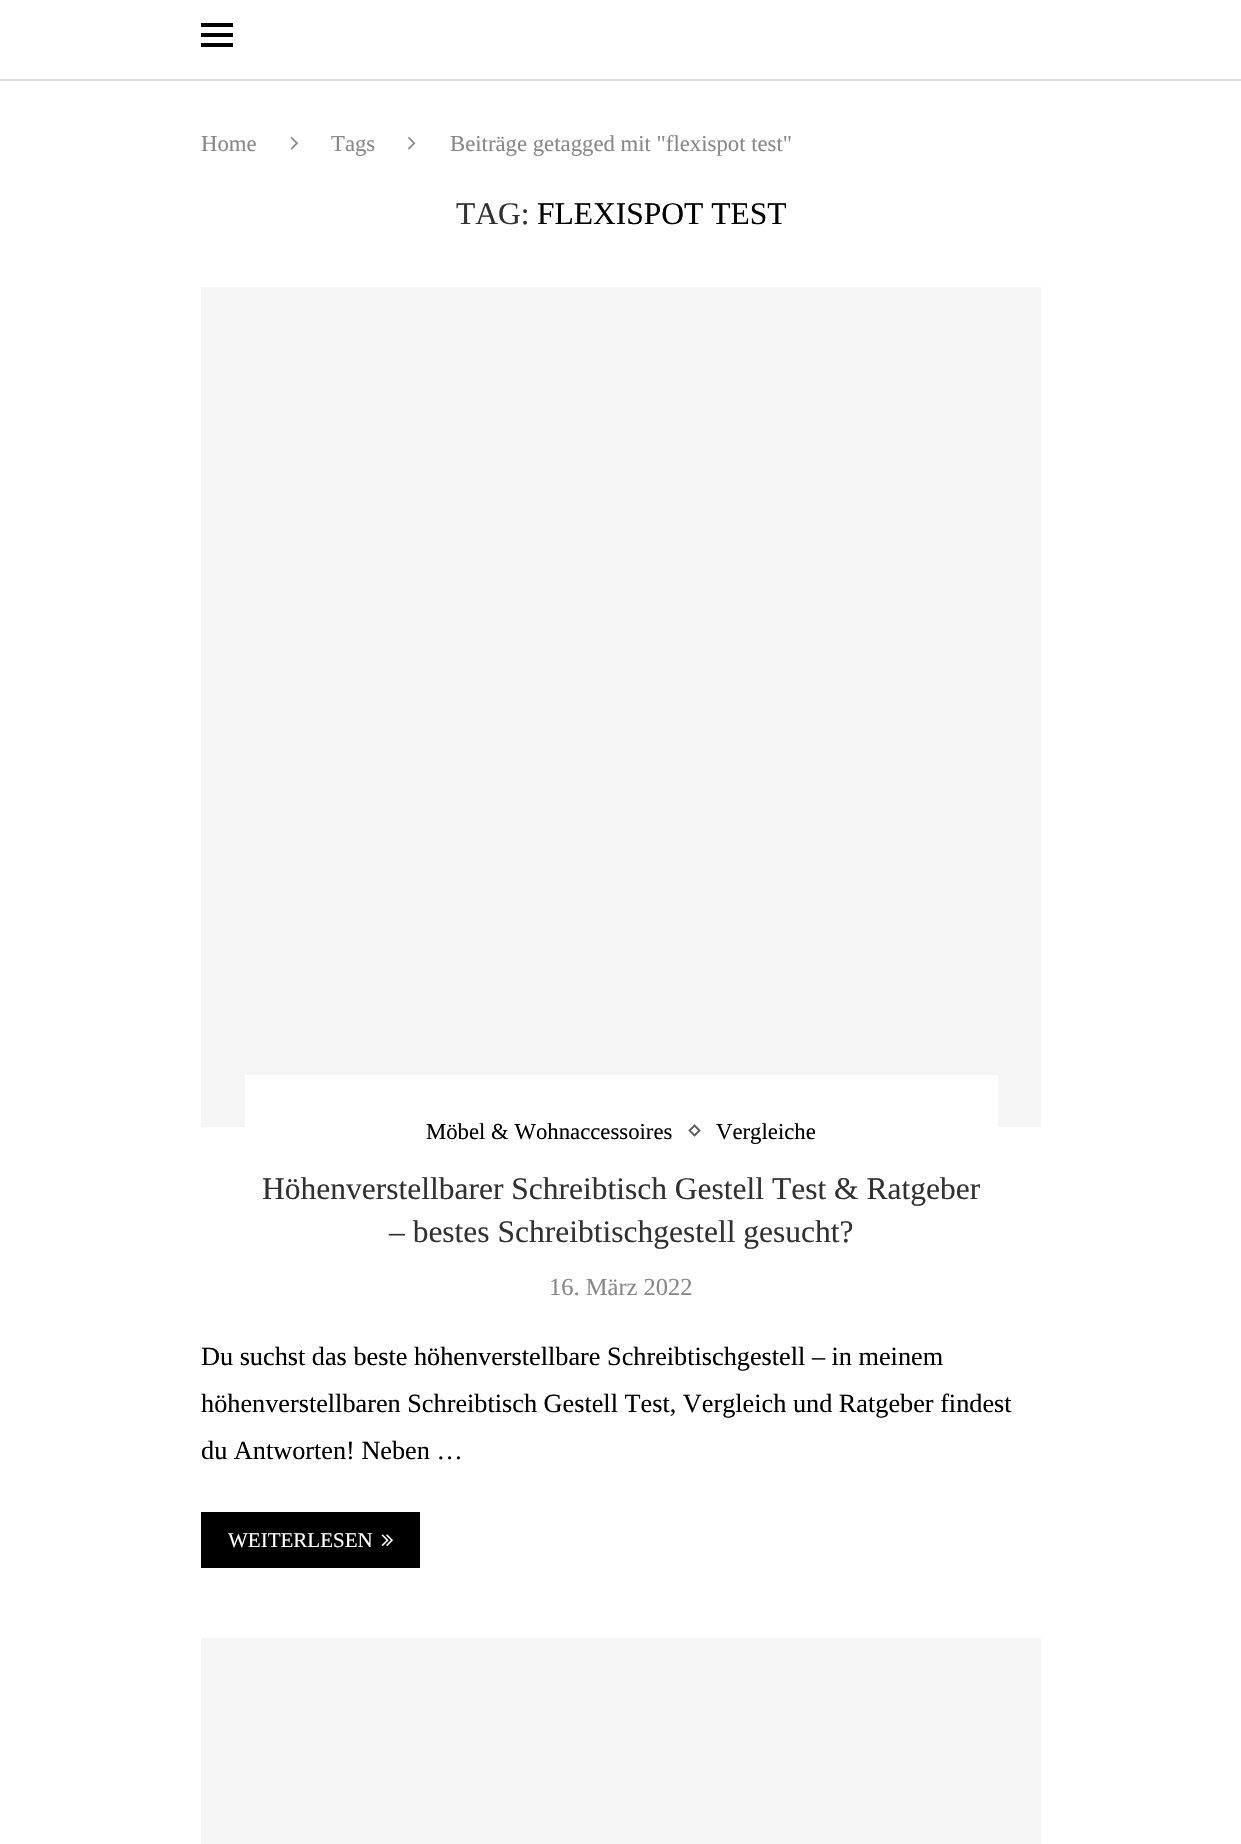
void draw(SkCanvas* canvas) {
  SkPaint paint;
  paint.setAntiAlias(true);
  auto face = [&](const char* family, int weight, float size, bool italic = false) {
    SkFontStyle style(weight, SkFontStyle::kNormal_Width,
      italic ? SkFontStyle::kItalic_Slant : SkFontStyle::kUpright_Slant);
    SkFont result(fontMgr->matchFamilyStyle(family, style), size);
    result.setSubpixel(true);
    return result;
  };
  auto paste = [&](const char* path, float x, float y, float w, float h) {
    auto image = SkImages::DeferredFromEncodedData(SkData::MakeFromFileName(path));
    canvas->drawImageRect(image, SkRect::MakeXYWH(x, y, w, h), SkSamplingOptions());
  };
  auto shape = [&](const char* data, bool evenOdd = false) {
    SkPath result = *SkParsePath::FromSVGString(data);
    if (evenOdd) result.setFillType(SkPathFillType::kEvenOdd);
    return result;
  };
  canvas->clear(0xffffffff);
  {
    const struct { float x, y, w, h; SkColor color; } items[] = {
      {0, 79, 1241, 2, 0xffdedede},
      {201, 23, 32, 4, 0xff000000},
      {201, 33, 32, 4, 0xff000000},
      {201, 43, 32, 4, 0xff000000},
    };
    for (auto [x, y, w, h, color] : items) {
      paint.setColor(color);
      canvas->drawRect(SkRect::MakeXYWH(x, y, w, h), paint);
    }
  }
  paste("img/1.png", 290, 136, 8, 14);
  paste("img/2.png", 408, 137, 8, 13);
  paint.setColor(0xfff5f5f5);
  canvas->drawRect(SkRect::MakeXYWH(201, 287, 840, 840), paint);
  paint.setColor(0xffffffff);
  canvas->drawRect(SkRect::MakeXYWH(245, 1075, 753, 52), paint);
  paint.setStroke(true);
  paint.setStrokeWidth(1.8f);
  paint.setColor(0xff595959);
  canvas->drawPath(shape("M694.5 1125.5L699.5 1130.5L694.5 1135.5L689.5 1130.5Z"), paint);
  paint.setStroke(false);
  paint.setColor(0xff000000);
  canvas->drawRect(SkRect::MakeXYWH(201, 1512, 219, 56), paint);
  paste("img/3.png", 381, 1534, 12, 12);
  paint.setColor(0xfff5f5f5);
  canvas->drawRect(SkRect::MakeXYWH(201, 1638, 840, 206), paint);
  auto f0 = face("Liberation Serif", 400, 22.75f);
  paint.setColor(0xff888888);
  {
    const struct { const char* s; float x, y; } items[] = {
      {"Home", 201, 151},
      {"Tags", 331, 151},
      {"Beiträge getagged mit \"flexispot test\"", 450, 151},
    };
    for (auto [s, x, y] : items) {
      canvas->drawString(s, x, y, f0, paint);
    }
  }
  auto f1 = face("Liberation Serif", 400, 31.5f);
  paint.setColor(0xff313131);
  canvas->drawString("TAG:", 456, 224, f1, paint);
  paint.setColor(0xff000000);
  canvas->drawString("FLEXISPOT TEST", 537, 224, f1, paint);
  canvas->drawString("Möbel & Wohnaccessoires", 426, 1139, f0, paint);
  canvas->drawString("Vergleiche", 716, 1139, f0, paint);
  paint.setColor(0xff313131);
  canvas->drawString("Höhenverstellbarer Schreibtisch Gestell Test & Ratgeber", 262, 1199, f1, paint);
  canvas->drawString("– bestes Schreibtischgestell gesucht?", 389, 1242, f1, paint);
  auto f2 = face("Liberation Serif", 400, 24.5f);
  paint.setColor(0xff888888);
  canvas->drawString("16. März 2022", 549, 1295, f2, paint);
  auto f3 = face("Liberation Serif", 400, 26.25f);
  paint.setColor(0xff000000);
  {
    const struct { const char* s; float x, y; } items[] = {
      {"Du suchst das beste höhenverstellbare Schreibtischgestell – in meinem", 201, 1365},
      {"höhenverstellbaren Schreibtisch Gestell Test, Vergleich und Ratgeber findest", 201, 1412},
      {"du Antworten! Neben …", 201, 1459},
    };
    for (auto [s, x, y] : items) {
      canvas->drawString(s, x, y, f3, paint);
    }
  }
  auto f4 = face("Liberation Serif", 400, 21);
  paint.setColor(0xffffffff);
  canvas->drawString("WEITERLESEN", 228, 1547, f4, paint);
}
